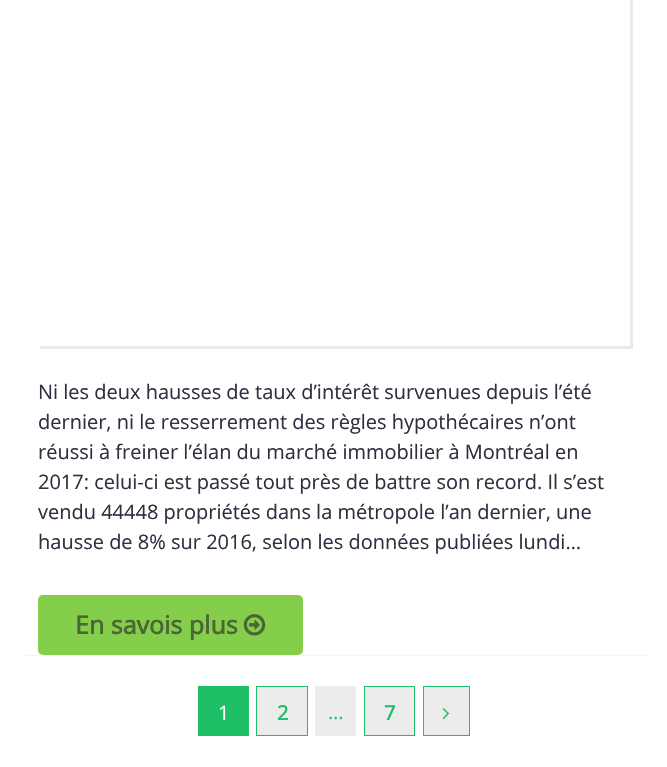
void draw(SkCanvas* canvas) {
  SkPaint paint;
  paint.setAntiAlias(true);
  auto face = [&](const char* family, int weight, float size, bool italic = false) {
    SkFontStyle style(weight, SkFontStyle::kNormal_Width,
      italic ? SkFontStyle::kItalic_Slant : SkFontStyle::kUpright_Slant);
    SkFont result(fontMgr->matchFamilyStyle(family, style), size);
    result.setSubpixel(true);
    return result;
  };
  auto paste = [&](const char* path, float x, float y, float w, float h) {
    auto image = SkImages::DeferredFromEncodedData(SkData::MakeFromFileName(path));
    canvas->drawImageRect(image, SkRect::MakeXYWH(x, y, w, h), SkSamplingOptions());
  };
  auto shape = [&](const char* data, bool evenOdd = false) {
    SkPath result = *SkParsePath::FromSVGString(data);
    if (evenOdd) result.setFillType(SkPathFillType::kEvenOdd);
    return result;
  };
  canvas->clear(0xffffffff);
  paint.setColor(0xfff8f8f8);
  canvas->drawRect(SkRect::MakeXYWH(19, 655, 630, 1), paint);
  paint.setColor(0xffeaeaea);
  canvas->drawPath(shape("M40 346V349H633V-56H630V346Z"), paint);
  paint.setColor(0xff84ce4c);
  canvas->drawRoundRect(SkRect::MakeXYWH(38, 595, 265, 60), 5, 5, paint);
  paste("img/1.png", 243, 614, 23, 22);
  paint.setColor(0xff1ebf66);
  canvas->drawRect(SkRect::MakeXYWH(198, 686, 51, 50), paint);
  paint.setColor(0xffececec);
  canvas->drawRect(SkRect::MakeXYWH(256.5f, 686.5f, 51, 49), paint);
  paint.setStroke(true);
  paint.setStrokeWidth(1);
  paint.setColor(0xff1ebf66);
  canvas->drawRect(SkRect::MakeXYWH(256.5f, 686.5f, 51, 49), paint);
  paint.setStroke(false);
  paint.setColor(0xffececec);
  canvas->drawRect(SkRect::MakeXYWH(315, 686, 41, 50), paint);
  canvas->drawRect(SkRect::MakeXYWH(364.5f, 686.5f, 50, 49), paint);
  paint.setStroke(true);
  paint.setColor(0xff1ebf66);
  canvas->drawRect(SkRect::MakeXYWH(364.5f, 686.5f, 50, 49), paint);
  paint.setStroke(false);
  paint.setColor(0xffececec);
  canvas->drawRect(SkRect::MakeXYWH(423.5f, 686.5f, 46, 49), paint);
  paint.setStroke(true);
  paint.setColor(0xff1ebf66);
  canvas->drawRect(SkRect::MakeXYWH(423.5f, 686.5f, 46, 49), paint);
  paste("img/2.png", 442, 708, 8, 12);
  auto f0 = face("Open Sans", 400, 20);
  paint.setStroke(false);
  paint.setColor(0xff2d313f);
  {
    const struct { const char* s; float x, y; } items[] = {
      {"Ni les deux hausses de taux d’intérêt survenues depuis l’été", 38, 399},
      {"dernier, ni le resserrement des règles hypothécaires n’ont", 38, 429},
      {"réussi à freiner l’élan du marché immobilier à Montréal en", 38, 459},
      {"2017: celui-ci est passé tout près de battre son record. Il s’est", 38, 489},
      {"vendu 44448 propriétés dans la métropole l’an dernier, une", 38, 519},
      {"hausse de 8% sur 2016, selon les données publiées lundi…", 38, 549},
    };
    for (auto [s, x, y] : items) {
      canvas->drawString(s, x, y, f0, paint);
    }
  }
  auto f1 = face("Open Sans", 700, 25);
  paint.setColor(0xff4a6634);
  canvas->drawString("En savois plus", 75, 634, f1, paint);
  paint.setColor(0xffffffff);
  canvas->drawString("1", 218, 720, f0, paint);
  auto f2 = face("Open Sans", 700, 20);
  paint.setColor(0xff1ebf66);
  canvas->drawString("2", 277, 720, f2, paint);
  canvas->drawString("…", 328, 719, f0, paint);
  canvas->drawString("7", 384, 720, f2, paint);
}
